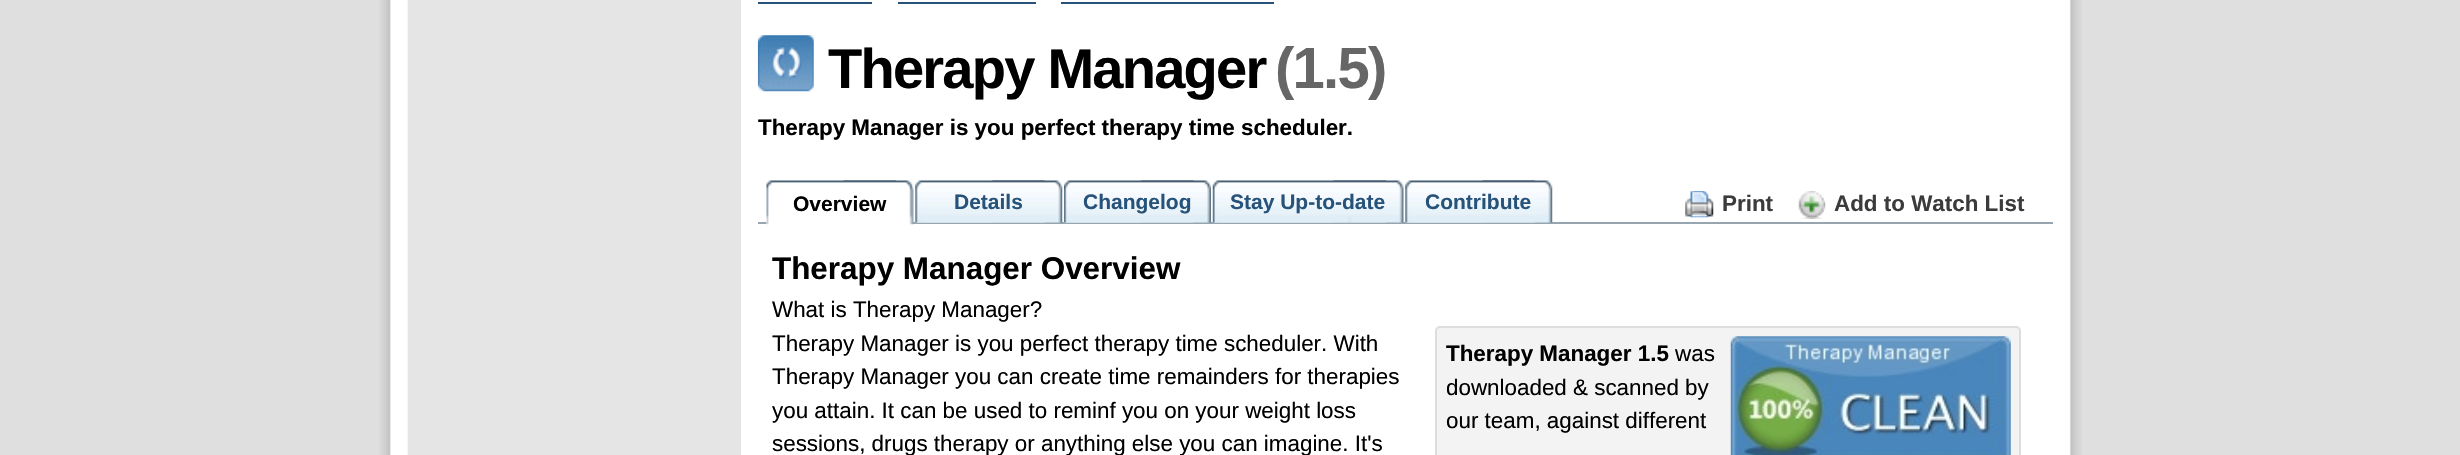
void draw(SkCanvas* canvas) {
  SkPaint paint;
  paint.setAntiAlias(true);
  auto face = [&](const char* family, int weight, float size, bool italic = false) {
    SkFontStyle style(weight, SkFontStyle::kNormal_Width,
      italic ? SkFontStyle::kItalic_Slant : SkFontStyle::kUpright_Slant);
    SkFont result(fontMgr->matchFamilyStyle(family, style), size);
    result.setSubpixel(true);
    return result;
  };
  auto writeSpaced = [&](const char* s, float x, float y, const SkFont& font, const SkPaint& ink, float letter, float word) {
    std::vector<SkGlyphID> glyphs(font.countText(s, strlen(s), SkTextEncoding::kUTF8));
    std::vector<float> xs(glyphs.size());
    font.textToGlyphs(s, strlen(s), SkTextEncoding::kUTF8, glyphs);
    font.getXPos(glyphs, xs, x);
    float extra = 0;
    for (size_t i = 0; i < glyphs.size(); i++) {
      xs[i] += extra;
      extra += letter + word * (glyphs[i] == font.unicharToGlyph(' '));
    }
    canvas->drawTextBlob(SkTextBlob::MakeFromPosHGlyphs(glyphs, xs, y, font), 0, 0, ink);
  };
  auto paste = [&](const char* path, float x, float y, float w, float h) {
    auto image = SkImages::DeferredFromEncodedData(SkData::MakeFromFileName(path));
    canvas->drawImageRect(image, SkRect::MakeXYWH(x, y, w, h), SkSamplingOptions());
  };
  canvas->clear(0xffdfdfdf);
  paste("img/1.png", 379, 0, 1703, 455);
  {
    const struct { float x, y, w, h; SkColor color; } items[] = {
      {408, 0, 333, 455, 0xffe5e5e5},
      {758, 2, 114, 2, 0xff27537a},
      {898, 2, 138, 2, 0xff27537a},
      {1061, 2, 213, 2, 0xff27537a},
    };
    for (auto [x, y, w, h, color] : items) {
      paint.setColor(color);
      canvas->drawRect(SkRect::MakeXYWH(x, y, w, h), paint);
    }
  }
  paste("img/2.png", 757, 35, 57, 57);
  paint.setColor(0xff97a5b0);
  canvas->drawRect(SkRect::MakeXYWH(758, 222, 1295, 2), paint);
  paste("img/3.png", 766, 180, 148, 45);
  paste("img/4.png", 766, 180, 130, 45);
  paste("img/5.png", 915, 180, 148, 43);
  paste("img/6.png", 915, 180, 130, 43);
  paste("img/7.png", 1064, 180, 147, 43);
  paste("img/8.png", 1064, 180, 130, 43);
  paste("img/9.png", 1212, 180, 192, 43);
  paste("img/10.png", 1212, 180, 174, 43);
  paste("img/5.png", 1405, 180, 148, 43);
  paste("img/11.png", 1405, 180, 130, 43);
  paste("img/12.png", 1685, 191, 29, 27);
  paste("img/13.png", 1798, 191, 28, 28);
  paint.setColor(0xfff3f3f3);
  canvas->drawRoundRect(SkRect::MakeXYWH(1436, 327, 584, 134), 4, 4, paint);
  paint.setStroke(true);
  paint.setStrokeWidth(2);
  paint.setColor(0xffdddddd);
  canvas->drawRoundRect(SkRect::MakeXYWH(1436, 327, 584, 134), 4, 4, paint);
  paste("img/14.png", 1730, 336, 281, 119);
  auto f0 = face("Liberation Sans", 700, 56);
  paint.setStroke(false);
  paint.setColor(0xff000000);
  writeSpaced("Therapy Manager", 828, 88, f0, paint, -1.75f, 0);
  auto f1 = face("Liberation Sans", 700, 58);
  paint.setColor(0xff666666);
  writeSpaced("(1.5)", 1275, 88, f1, paint, -1.75f, 0);
  auto f2 = face("Liberation Sans", 700, 22.4f);
  paint.setColor(0xff000000);
  canvas->drawString("Therapy Manager is you perfect therapy time scheduler.", 758, 135, f2, paint);
  auto f3 = face("Liberation Sans", 700, 21);
  canvas->drawString("Overview", 793, 211, f3, paint);
  paint.setColor(0xff27537a);
  {
    const struct { const char* s; float x, y; } items[] = {
      {"Details", 954, 209},
      {"Changelog", 1083, 209},
      {"Stay Up-to-date", 1230, 209},
      {"Contribute", 1425, 209},
    };
    for (auto [s, x, y] : items) {
      canvas->drawString(s, x, y, f3, paint);
    }
  }
  paint.setColor(0xff3b3b3b);
  canvas->drawString("Print", 1722, 211, f2, paint);
  canvas->drawString("Add to Watch List", 1834, 211, f2, paint);
  auto f4 = face("Liberation Sans", 700, 31.4f);
  paint.setColor(0xff000000);
  canvas->drawString("Therapy Manager Overview", 772, 279, f4, paint);
  auto f5 = face("Liberation Sans", 400, 22.4f);
  {
    const struct { const char* s; float x, y; } items[] = {
      {"What is Therapy Manager?", 772, 317},
      {"Therapy Manager is you perfect therapy time scheduler. With", 772, 351},
      {"Therapy Manager you can create time remainders for therapies", 772, 384},
      {"you attain. It can be used to reminf you on your weight loss", 772, 418},
      {"sessions, drugs therapy or anything else you can imagine. It's", 772, 451},
    };
    for (auto [s, x, y] : items) {
      canvas->drawString(s, x, y, f5, paint);
    }
  }
  canvas->drawString("Therapy Manager 1.5", 1446, 361, f2, paint);
  {
    const struct { const char* s; float x, y; } items[] = {
      {"was", 1675, 361},
      {"downloaded & scanned by", 1446, 395},
      {"our team, against different", 1446, 428},
    };
    for (auto [s, x, y] : items) {
      canvas->drawString(s, x, y, f5, paint);
    }
  }
}
